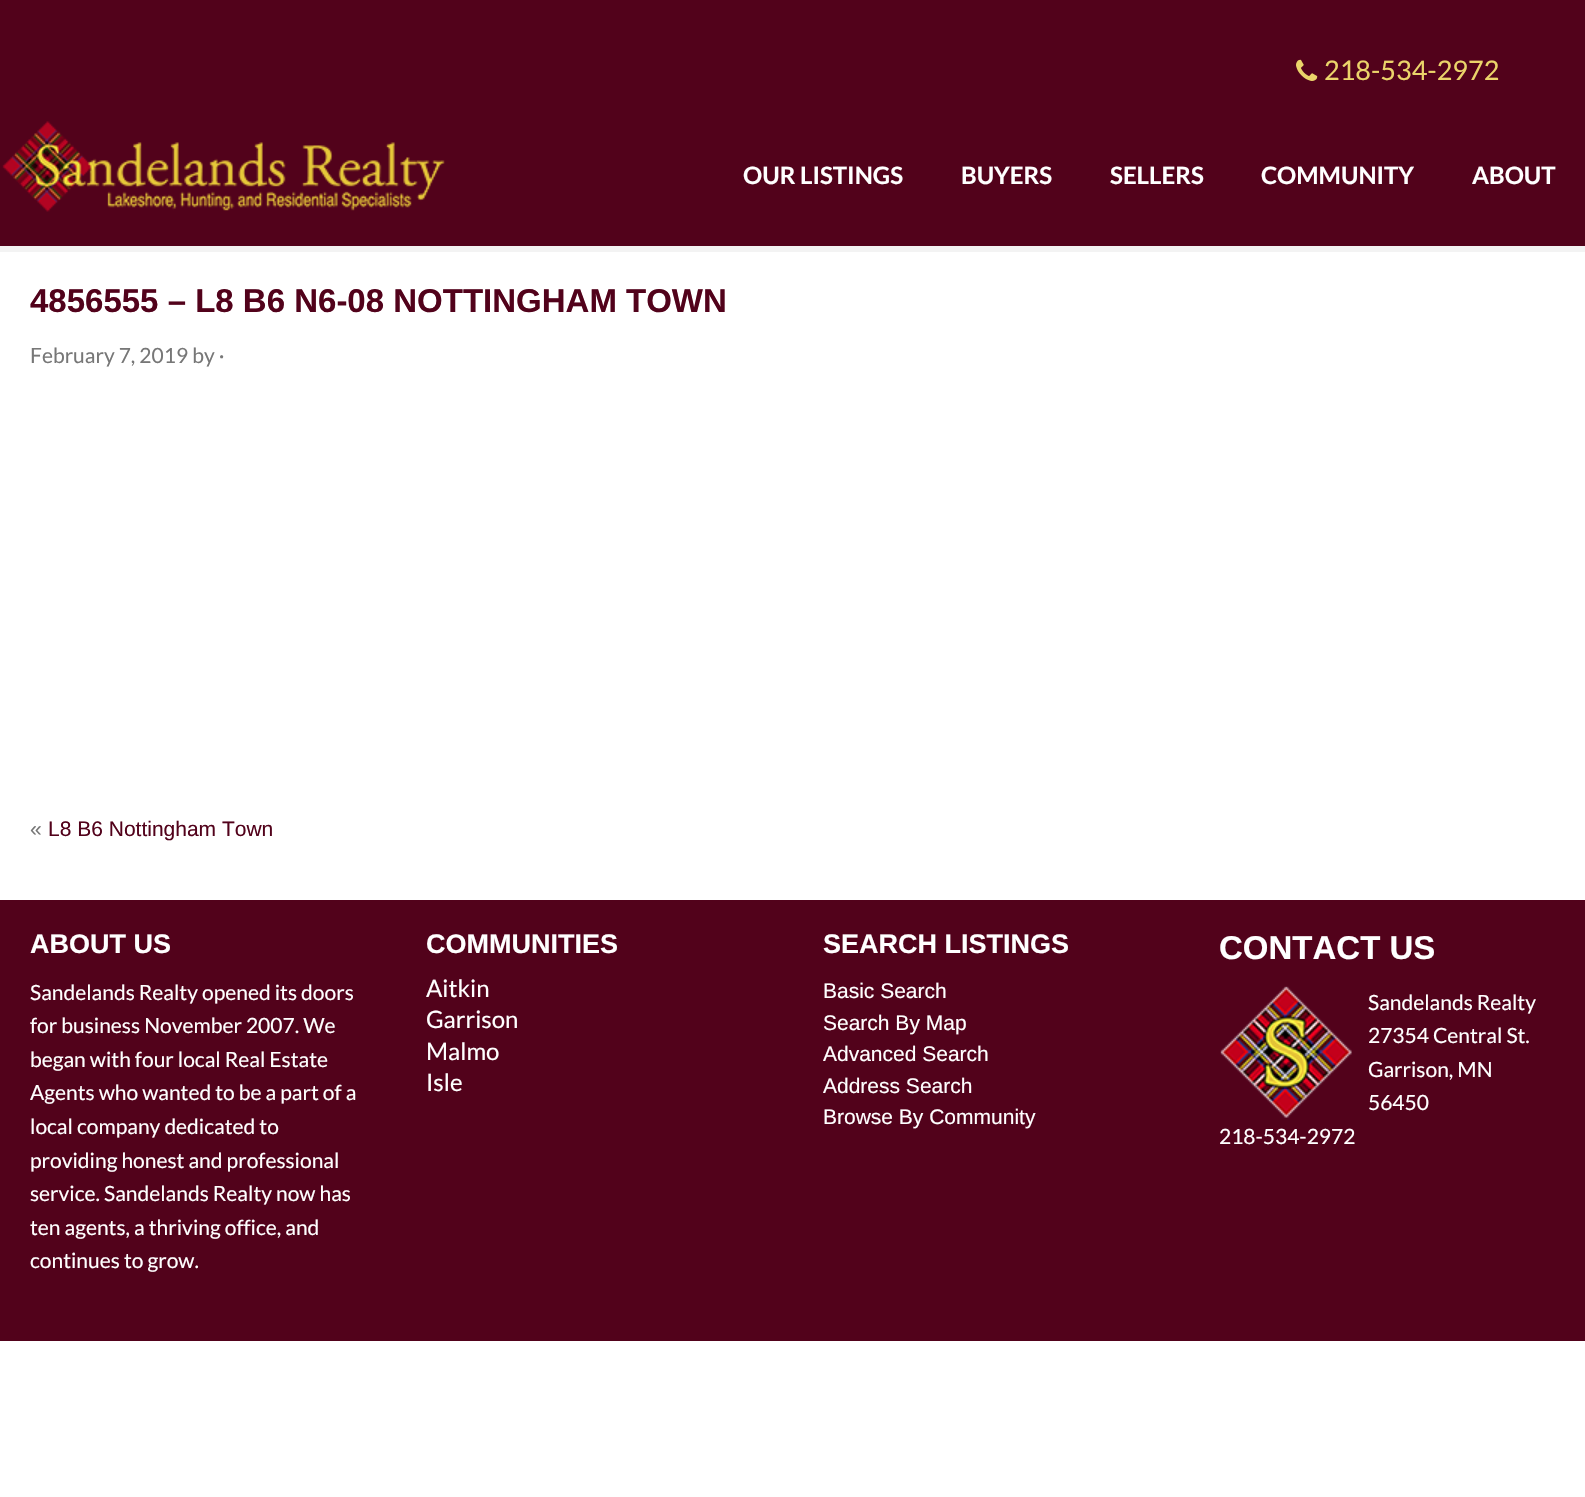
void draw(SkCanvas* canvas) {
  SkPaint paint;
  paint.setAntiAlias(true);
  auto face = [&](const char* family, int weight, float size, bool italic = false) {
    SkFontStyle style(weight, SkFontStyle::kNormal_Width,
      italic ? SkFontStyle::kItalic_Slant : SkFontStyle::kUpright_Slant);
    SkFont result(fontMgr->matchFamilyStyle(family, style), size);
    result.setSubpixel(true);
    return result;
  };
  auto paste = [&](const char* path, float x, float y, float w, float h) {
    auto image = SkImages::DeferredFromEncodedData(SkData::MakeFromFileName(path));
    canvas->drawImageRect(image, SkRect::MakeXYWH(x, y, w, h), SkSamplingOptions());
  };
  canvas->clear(0xffffffff);
  paint.setColor(0xff52021b);
  canvas->drawRect(SkRect::MakeXYWH(0, 0, 1585, 246), paint);
  paste("img/1.png", 1296, 59, 22, 22);
  paint.setColor(0xfff3f3f3);
  canvas->drawRect(SkRect::MakeXYWH(0, 246, 1585, 6), paint);
  paste("img/2.png", 2, 121, 443, 91);
  paint.setColor(0xff52021b);
  canvas->drawRect(SkRect::MakeXYWH(0, 900, 1585, 441), paint);
  paste("img/3.png", 1220, 986, 132, 132);
  auto f0 = face("Lato", 400, 27);
  paint.setColor(0xffebd46a);
  canvas->drawString("218-534-2972", 1324, 80, f0, paint);
  auto f1 = face("Lato", 700, 24);
  paint.setColor(0xffffffff);
  {
    const struct { const char* s; float x, y; } items[] = {
      {"OUR LISTINGS", 743, 184},
      {"BUYERS", 961, 184},
      {"SELLERS", 1110, 184},
      {"COMMUNITY", 1261, 184},
      {"ABOUT", 1472, 184},
    };
    for (auto [s, x, y] : items) {
      canvas->drawString(s, x, y, f1, paint);
    }
  }
  auto f2 = face("Liberation Sans", 700, 33);
  paint.setColor(0xff52021b);
  canvas->drawString("4856555 – L8 B6 N6-08 NOTTINGHAM TOWN", 30, 312, f2, paint);
  auto f3 = face("Lato", 400, 21);
  paint.setColor(0xff777777);
  canvas->drawString("February 7, 2019 by ·", 30, 363, f3, paint);
  auto f4 = face("Liberation Sans", 400, 21);
  canvas->drawString("«", 30, 836, f4, paint);
  paint.setColor(0xff52021b);
  canvas->drawString("L8 B6 Nottingham Town", 48, 836, f4, paint);
  auto f5 = face("Liberation Sans", 700, 27);
  paint.setColor(0xffffffff);
  canvas->drawString("ABOUT US", 30, 953, f5, paint);
  {
    const struct { const char* s; float x, y; } items[] = {
      {"Sandelands Realty opened its doors", 30, 1000},
      {"for business November 2007. We", 30, 1033},
      {"began with four local Real Estate", 30, 1067},
      {"Agents who wanted to be a part of a", 30, 1100},
      {"local company dedicated to", 30, 1134},
      {"providing honest and professional", 30, 1168},
      {"service. Sandelands Realty now has", 30, 1201},
      {"ten agents, a thriving office, and", 30, 1235},
      {"continues to grow.", 30, 1268},
    };
    for (auto [s, x, y] : items) {
      canvas->drawString(s, x, y, f3, paint);
    }
  }
  canvas->drawString("COMMUNITIES", 426, 953, f5, paint);
  auto f6 = face("Lato", 400, 24);
  {
    const struct { const char* s; float x, y; } items[] = {
      {"Aitkin", 426, 997},
      {"Garrison", 426, 1028},
      {"Malmo", 426, 1060},
      {"Isle", 426, 1091},
    };
    for (auto [s, x, y] : items) {
      canvas->drawString(s, x, y, f6, paint);
    }
  }
  canvas->drawString("SEARCH LISTINGS", 823, 953, f5, paint);
  {
    const struct { const char* s; float x, y; } items[] = {
      {"Basic Search", 823, 998},
      {"Search By Map", 823, 1030},
      {"Advanced Search", 823, 1061},
      {"Address Search", 823, 1093},
      {"Browse By Community", 823, 1124},
    };
    for (auto [s, x, y] : items) {
      canvas->drawString(s, x, y, f4, paint);
    }
  }
  canvas->drawString("CONTACT US", 1219, 959, f2, paint);
  {
    const struct { const char* s; float x, y; } items[] = {
      {"Sandelands Realty", 1368, 1010},
      {"27354 Central St.", 1368, 1043},
      {"Garrison, MN", 1368, 1077},
      {"56450", 1368, 1110},
      {"218-534-2972", 1219, 1144},
    };
    for (auto [s, x, y] : items) {
      canvas->drawString(s, x, y, f3, paint);
    }
  }
}
